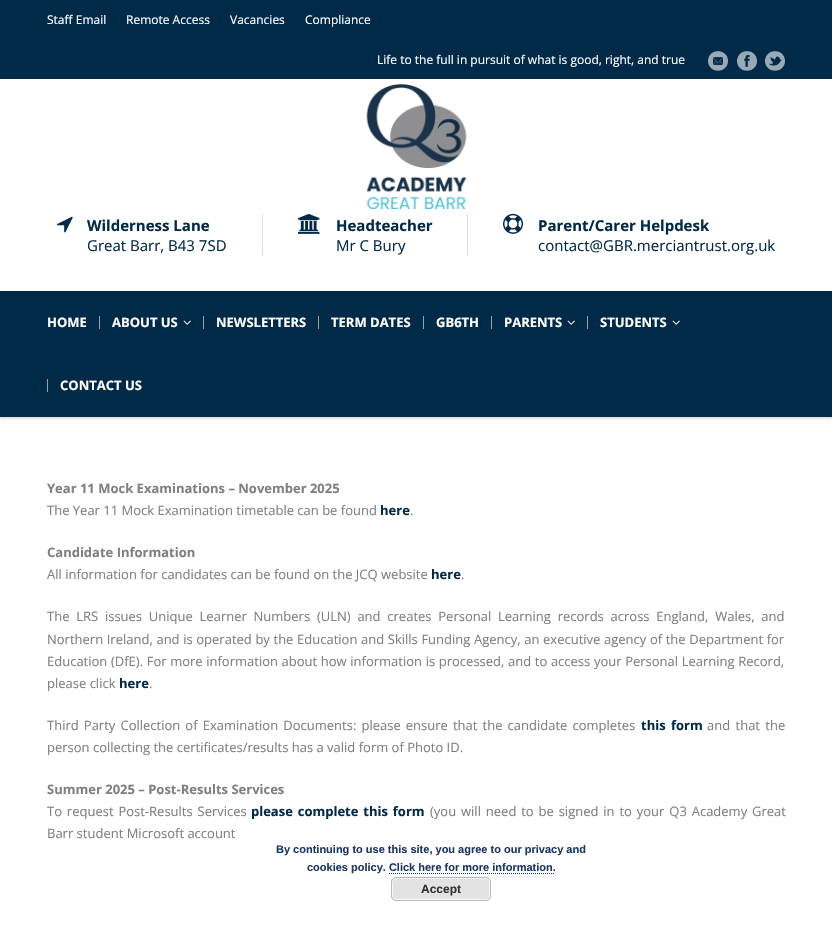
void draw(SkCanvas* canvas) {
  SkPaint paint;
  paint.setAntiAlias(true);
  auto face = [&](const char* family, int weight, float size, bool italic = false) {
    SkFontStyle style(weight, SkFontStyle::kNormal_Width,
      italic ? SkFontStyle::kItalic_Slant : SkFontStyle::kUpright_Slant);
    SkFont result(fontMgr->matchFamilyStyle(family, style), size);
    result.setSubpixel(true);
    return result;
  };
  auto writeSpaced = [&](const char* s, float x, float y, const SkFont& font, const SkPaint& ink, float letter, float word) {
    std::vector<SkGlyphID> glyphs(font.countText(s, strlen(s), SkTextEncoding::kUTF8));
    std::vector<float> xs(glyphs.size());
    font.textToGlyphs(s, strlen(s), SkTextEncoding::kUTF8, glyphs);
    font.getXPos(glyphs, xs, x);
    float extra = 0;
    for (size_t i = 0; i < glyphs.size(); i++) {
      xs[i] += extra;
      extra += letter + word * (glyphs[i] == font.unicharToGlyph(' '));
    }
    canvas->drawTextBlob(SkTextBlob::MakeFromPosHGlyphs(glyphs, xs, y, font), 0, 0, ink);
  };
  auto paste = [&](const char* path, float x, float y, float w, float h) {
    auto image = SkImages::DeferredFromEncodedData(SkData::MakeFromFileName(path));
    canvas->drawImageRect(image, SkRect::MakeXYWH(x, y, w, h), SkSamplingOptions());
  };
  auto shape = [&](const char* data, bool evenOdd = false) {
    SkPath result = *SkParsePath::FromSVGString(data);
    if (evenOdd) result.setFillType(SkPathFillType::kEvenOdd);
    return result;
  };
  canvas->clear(0xffffffff);
  paint.setColor(0xff002a48);
  canvas->drawRect(SkRect::MakeXYWH(0, 0, 832, 79), paint);
  paste("img/1.png", 708, 51, 20, 20);
  paste("img/2.png", 737, 51, 20, 20);
  paste("img/3.png", 765, 51, 20, 20);
  paste("img/4.png", 366, 84, 101, 125);
  paste("img/5.png", 57, 216, 16, 17);
  paint.setColor(0xffdcdcdc);
  canvas->drawRect(SkRect::MakeXYWH(262, 214, 1, 41), paint);
  paste("img/6.png", 298, 213, 22, 21);
  canvas->drawRect(SkRect::MakeXYWH(467, 214, 1, 41), paint);
  paste("img/7.png", 503, 213, 20, 21);
  paint.setColor(0x1f000000);
  paint.setMaskFilter(SkMaskFilter::MakeBlur(kNormal_SkBlurStyle, 1));
  canvas->drawRect(SkRect::MakeXYWH(0, 293, 832, 126), paint);
  paint.setMaskFilter(nullptr);
  paint.setColor(0xff002a48);
  canvas->drawRect(SkRect::MakeXYWH(0, 291, 832, 126), paint);
  paint.setColor(0xff9ea0a4);
  canvas->drawRect(SkRect::MakeXYWH(99, 316, 1, 13), paint);
  paste("img/8.png", 183, 320, 8, 5);
  {
    const struct { float x, y, w, h; SkColor color; } items[] = {
      {203, 316, 1, 13, 0xff9ea0a4},
      {318, 316, 1, 13, 0xff9ea0a4},
      {423, 316, 1, 13, 0xff9ea0a4},
      {491, 316, 1, 13, 0xff9ea0a4},
    };
    for (auto [x, y, w, h, color] : items) {
      paint.setColor(color);
      canvas->drawRect(SkRect::MakeXYWH(x, y, w, h), paint);
    }
  }
  paste("img/8.png", 567, 320, 8, 5);
  canvas->drawRect(SkRect::MakeXYWH(587, 316, 1, 13), paint);
  paste("img/8.png", 672, 320, 8, 5);
  canvas->drawRect(SkRect::MakeXYWH(47, 379, 1, 13), paint);
  paint.setStroke(true);
  paint.setStrokeWidth(1);
  paint.setColor(0xff1c3664);
  paint.setPathEffect(SkDashPathEffect::Make({{1, 1}}, 0));
  canvas->drawPath(shape("M389 873.5H555"), paint);
  paint.setPathEffect(nullptr);
  paint.setStroke(false);
  paint.setColor(0xffe3e3e3);
  canvas->drawRoundRect(SkRect::MakeXYWH(391, 877, 100, 24), 5, 5, paint);
  paint.setStroke(true);
  paint.setColor(0xfff6f6f6);
  canvas->drawRoundRect(SkRect::MakeXYWH(392.5f, 878.5f, 97, 21), 3.5f, 3.5f, paint);
  paint.setColor(0xffbbbbbb);
  canvas->drawRoundRect(SkRect::MakeXYWH(391.5f, 877.5f, 99, 23), 4.5f, 4.5f, paint);
  auto f0 = face("Open Sans", 400, 12);
  paint.setStroke(false);
  paint.setColor(0xffffffff);
  {
    const struct { const char* s; float x, y; } items[] = {
      {"Staff Email", 47, 24},
      {"Remote Access", 126, 24},
      {"Vacancies", 230, 24},
      {"Compliance", 305, 24},
      {"Life to the full in pursuit of what is good, right, and true", 377, 64},
    };
    for (auto [s, x, y] : items) {
      canvas->drawString(s, x, y, f0, paint);
    }
  }
  auto f1 = face("Open Sans", 700, 15);
  paint.setColor(0xff002a48);
  canvas->drawString("Wilderness Lane", 87, 231, f1, paint);
  auto f2 = face("Open Sans", 400, 15);
  canvas->drawString("Great Barr, B43 7SD", 87, 251, f2, paint);
  canvas->drawString("Headteacher", 336, 231, f1, paint);
  canvas->drawString("Mr C Bury", 336, 251, f2, paint);
  canvas->drawString("Parent/Carer Helpdesk", 538, 231, f1, paint);
  canvas->drawString("contact@GBR.merciantrust.org.uk", 538, 251, f2, paint);
  auto f3 = face("Open Sans", 700, 13);
  paint.setColor(0xffffffff);
  {
    const struct { const char* s; float x, y; } items[] = {
      {"HOME", 47, 327},
      {"ABOUT US", 112, 327},
      {"NEWSLETTERS", 216, 327},
      {"TERM DATES", 331, 327},
      {"GB6TH", 436, 327},
      {"PARENTS", 504, 327},
      {"STUDENTS", 600, 327},
      {"CONTACT US", 60, 390},
    };
    for (auto [s, x, y] : items) {
      canvas->drawString(s, x, y, f3, paint);
    }
  }
  paint.setColor(0xff808080);
  canvas->drawString("Year 11 Mock Examinations – November 2025", 47, 493, f3, paint);
  auto f4 = face("Open Sans", 400, 13);
  canvas->drawString("The Year 11 Mock Examination timetable can be found", 47, 515, f4, paint);
  paint.setColor(0xff002a48);
  canvas->drawString("here", 380, 515, f3, paint);
  paint.setColor(0xff808080);
  canvas->drawString(".", 410, 515, f4, paint);
  canvas->drawString("Candidate Information", 47, 557, f3, paint);
  canvas->drawString("All information for candidates can be found on the JCQ website", 47, 579, f4, paint);
  paint.setColor(0xff002a48);
  canvas->drawString("here", 431, 579, f3, paint);
  paint.setColor(0xff808080);
  canvas->drawString(".", 461, 579, f4, paint);
  writeSpaced("The LRS issues Unique Learner Numbers (ULN) and creates Personal Learning records across England, Wales, and", 47, 621, f4, paint, 0, 3.4f);
  writeSpaced("Northern Ireland, and is operated by the Education and Skills Funding Agency, an executive agency of the Department for", 47, 644, f4, paint, 0, 0.25f);
  writeSpaced("Education (DfE). For more information about how information is processed, and to access your Personal Learning Record,", 47, 666, f4, paint, 0, 0.25f);
  canvas->drawString("please click", 47, 688, f4, paint);
  paint.setColor(0xff002a48);
  canvas->drawString("here", 119, 688, f3, paint);
  paint.setColor(0xff808080);
  canvas->drawString(".", 149, 688, f4, paint);
  writeSpaced("Third Party Collection of Examination Documents: please ensure that the candidate completes", 47, 730, f4, paint, 0, 1.75f);
  paint.setColor(0xff002a48);
  writeSpaced("this form", 641, 730, f3, paint, 0, 2);
  paint.setColor(0xff808080);
  writeSpaced("and that the", 707, 730, f4, paint, 0, 2);
  canvas->drawString("person collecting the certificates/results has a valid form of Photo ID.", 47, 752, f4, paint);
  canvas->drawString("Summer 2025 – Post-Results Services", 47, 794, f3, paint);
  writeSpaced("To request Post-Results Services", 47, 816, f4, paint, 0, 1.5f);
  paint.setColor(0xff002a48);
  writeSpaced("please complete this form", 251, 816, f3, paint, 0, 1.5f);
  paint.setColor(0xff808080);
  writeSpaced("(you will need to be signed in to your Q3 Academy Great", 430, 816, f4, paint, 0, 1.5f);
  canvas->drawString("Barr student Microsoft account", 47, 838, f4, paint);
  auto f5 = face("Liberation Sans", 700, 11);
  paint.setColor(0xff1c3664);
  canvas->drawString("By continuing to use this site, you agree to our privacy and", 276, 853, f5, paint);
  canvas->drawString("cookies policy. Click here for more information.", 307, 871, f5, paint);
  auto f6 = face("Liberation Sans", 700, 12);
  paint.setColor(0xff333333);
  canvas->drawString("Accept", 421, 893, f6, paint);
}
